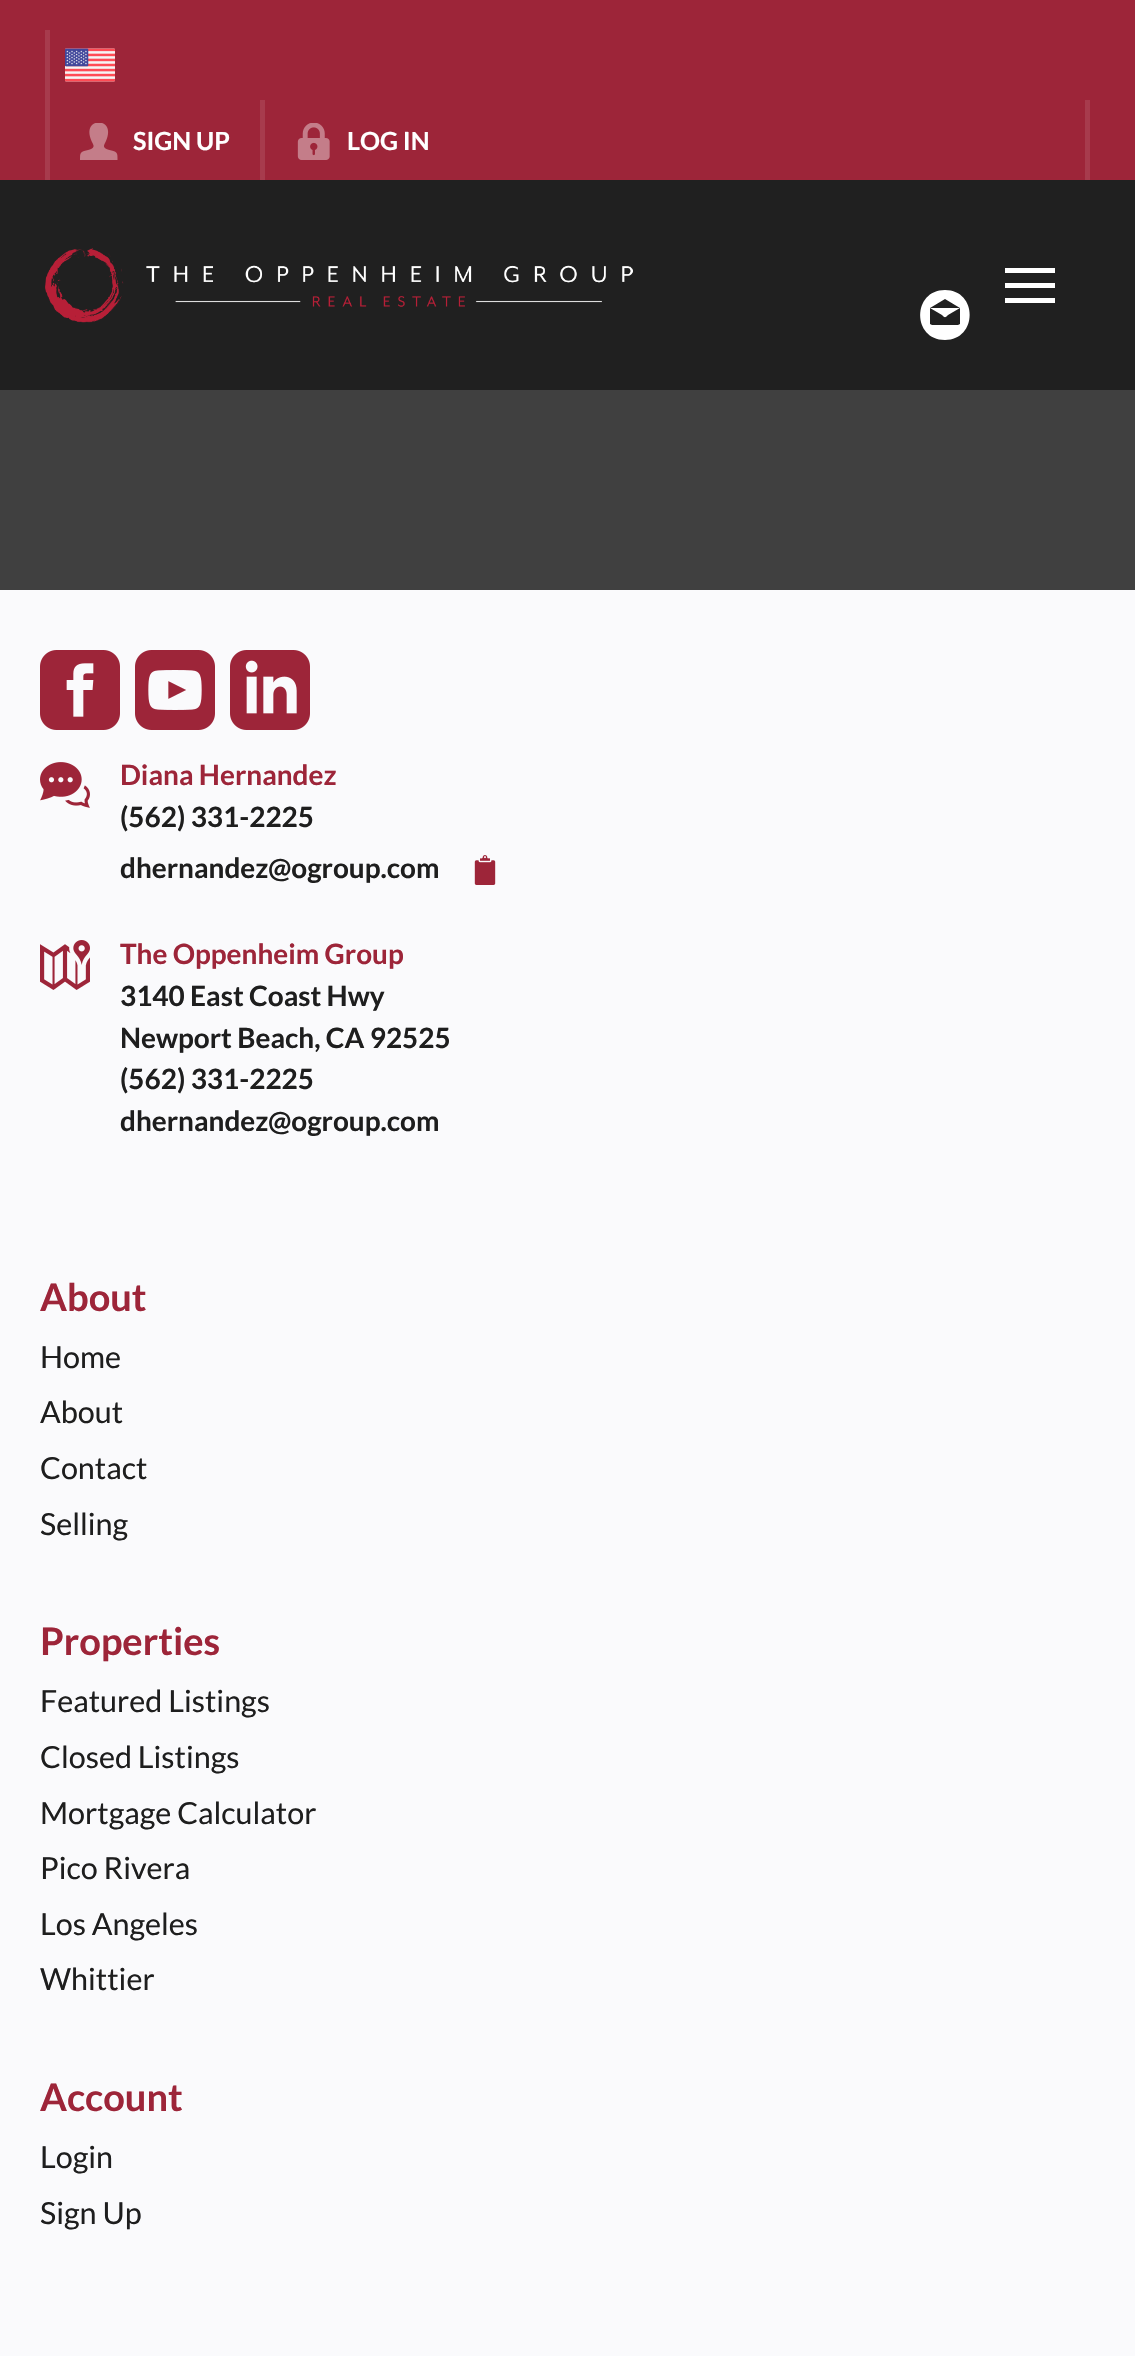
void draw(SkCanvas* canvas) {
  SkPaint paint;
  paint.setAntiAlias(true);
  auto face = [&](const char* family, int weight, float size, bool italic = false) {
    SkFontStyle style(weight, SkFontStyle::kNormal_Width,
      italic ? SkFontStyle::kItalic_Slant : SkFontStyle::kUpright_Slant);
    SkFont result(fontMgr->matchFamilyStyle(family, style), size);
    result.setSubpixel(true);
    return result;
  };
  auto paste = [&](const char* path, float x, float y, float w, float h) {
    auto image = SkImages::DeferredFromEncodedData(SkData::MakeFromFileName(path));
    canvas->drawImageRect(image, SkRect::MakeXYWH(x, y, w, h), SkSamplingOptions());
  };
  auto shape = [&](const char* data, bool evenOdd = false) {
    SkPath result = *SkParsePath::FromSVGString(data);
    if (evenOdd) result.setFillType(SkPathFillType::kEvenOdd);
    return result;
  };
  canvas->clear(0xff404040);
  paint.setColor(0xff9d2539);
  canvas->drawRect(SkRect::MakeXYWH(0, 0, 1135, 180), paint);
  paint.setColor(0xffa73b4d);
  canvas->drawRect(SkRect::MakeXYWH(45, 30, 5, 150), paint);
  paste("img/1.png", 65, 48, 50, 34);
  canvas->drawRect(SkRect::MakeXYWH(1085, 100, 5, 80), paint);
  paste("img/2.png", 80, 123, 38, 37);
  canvas->drawRect(SkRect::MakeXYWH(260, 100, 5, 80), paint);
  paste("img/3.png", 297, 123, 33, 37);
  paint.setColor(0xff202020);
  canvas->drawRect(SkRect::MakeXYWH(0, 180, 1135, 210), paint);
  paste("img/4.png", 45, 248, 588, 75);
  {
    const struct { float x, y, w, h; SkColor color; } items[] = {
      {1005, 268, 50, 5, 0xffffffff},
      {1005, 283, 50, 5, 0xffffffff},
      {1005, 298, 50, 5, 0xffffffff},
    };
    for (auto [x, y, w, h, color] : items) {
      paint.setColor(color);
      canvas->drawRect(SkRect::MakeXYWH(x, y, w, h), paint);
    }
  }
  canvas->drawPath(shape("M945 290C912 290 912 340 945 340C978 340 978 290 945 290ZM945 299L960 308H930ZM960 323V324L958 325H932L930 324C930 323 930 310 930 308L942 315C945 318 945 318 948 315L960 308Z"), paint);
  paint.setColor(0xfffafafc);
  canvas->drawRect(SkRect::MakeXYWH(0, 590, 1135, 1766), paint);
  paste("img/5.png", 40, 650, 80, 80);
  paste("img/6.png", 135, 650, 80, 80);
  paste("img/7.png", 230, 650, 80, 80);
  paste("img/8.png", 40, 762, 50, 46);
  paste("img/9.png", 474, 855, 22, 30);
  paste("img/10.png", 40, 940, 50, 50);
  auto f0 = face("Lato", 700, 25);
  paint.setColor(0xffffffff);
  canvas->drawString("SIGN UP", 133, 150, f0, paint);
  canvas->drawString("LOG IN", 347, 150, f0, paint);
  auto f1 = face("Lato", 700, 27.9f);
  paint.setColor(0xff9d2539);
  canvas->drawString("Diana Hernandez", 120, 785, f1, paint);
  paint.setColor(0xff1e1e1e);
  canvas->drawString("(562) 331-2225", 120, 827, f1, paint);
  canvas->drawString("dhernandez@ogroup.com", 120, 878, f1, paint);
  paint.setColor(0xff9d2539);
  canvas->drawString("The Oppenheim Group", 120, 964, f1, paint);
  paint.setColor(0xff1e1e1e);
  {
    const struct { const char* s; float x, y; } items[] = {
      {"3140 East Coast Hwy", 120, 1006},
      {"Newport Beach, CA 92525", 120, 1048},
      {"(562) 331-2225", 120, 1089},
      {"dhernandez@ogroup.com", 120, 1131},
    };
    for (auto [s, x, y] : items) {
      canvas->drawString(s, x, y, f1, paint);
    }
  }
  auto f2 = face("Lato", 700, 38);
  paint.setColor(0xff9d2539);
  canvas->drawString("About", 40, 1311, f2, paint);
  auto f3 = face("Lato", 400, 30.5f);
  paint.setColor(0xff1e1e1e);
  {
    const struct { const char* s; float x, y; } items[] = {
      {"Home", 40, 1368},
      {"About", 40, 1423},
      {"Contact", 40, 1479},
      {"Selling", 40, 1535},
    };
    for (auto [s, x, y] : items) {
      canvas->drawString(s, x, y, f3, paint);
    }
  }
  paint.setColor(0xff9d2539);
  canvas->drawString("Properties", 40, 1655, f2, paint);
  paint.setColor(0xff1e1e1e);
  {
    const struct { const char* s; float x, y; } items[] = {
      {"Featured Listings", 40, 1712},
      {"Closed Listings", 40, 1768},
      {"Mortgage Calculator", 40, 1824},
      {"Pico Rivera", 40, 1879},
      {"Los Angeles", 40, 1935},
      {"Whittier", 40, 1990},
    };
    for (auto [s, x, y] : items) {
      canvas->drawString(s, x, y, f3, paint);
    }
  }
  paint.setColor(0xff9d2539);
  canvas->drawString("Account", 40, 2111, f2, paint);
  paint.setColor(0xff1e1e1e);
  canvas->drawString("Login", 40, 2168, f3, paint);
  canvas->drawString("Sign Up", 40, 2224, f3, paint);
}
